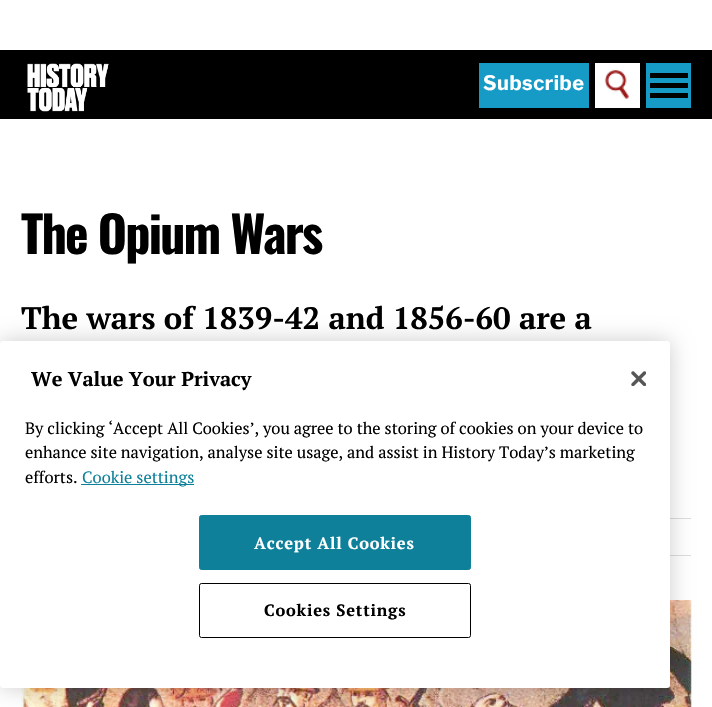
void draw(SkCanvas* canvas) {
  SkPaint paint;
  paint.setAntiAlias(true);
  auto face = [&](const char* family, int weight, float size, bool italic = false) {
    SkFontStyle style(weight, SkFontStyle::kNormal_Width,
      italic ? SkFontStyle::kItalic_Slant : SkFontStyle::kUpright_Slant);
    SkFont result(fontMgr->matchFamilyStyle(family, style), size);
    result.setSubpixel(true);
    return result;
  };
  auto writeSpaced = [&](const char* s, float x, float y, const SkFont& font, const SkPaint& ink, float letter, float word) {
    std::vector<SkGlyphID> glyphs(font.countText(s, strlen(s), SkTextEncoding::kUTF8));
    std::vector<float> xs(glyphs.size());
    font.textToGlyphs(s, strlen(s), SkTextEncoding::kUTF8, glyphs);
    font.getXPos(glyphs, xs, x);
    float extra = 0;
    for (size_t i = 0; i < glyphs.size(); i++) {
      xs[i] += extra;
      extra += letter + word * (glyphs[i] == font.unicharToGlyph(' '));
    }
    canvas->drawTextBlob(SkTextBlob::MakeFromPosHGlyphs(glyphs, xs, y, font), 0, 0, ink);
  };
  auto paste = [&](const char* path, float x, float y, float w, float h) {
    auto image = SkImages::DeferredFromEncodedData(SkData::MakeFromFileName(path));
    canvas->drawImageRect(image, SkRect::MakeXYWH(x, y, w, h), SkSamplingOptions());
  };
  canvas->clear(0xffffffff);
  paint.setColor(0xff000000);
  canvas->drawRect(SkRect::MakeXYWH(0, 50, 712, 69), paint);
  paste("img/1.png", 27, 63, 82, 49);
  paint.setColor(0xff169bc7);
  canvas->drawRect(SkRect::MakeXYWH(479, 63, 110, 45), paint);
  paint.setColor(0xffffffff);
  canvas->drawRect(SkRect::MakeXYWH(595, 63, 45, 45), paint);
  paste("img/2.png", 604, 69, 25, 30);
  {
    const struct { float x, y, w, h; SkColor color; } items[] = {
      {646, 63, 45, 45, 0xff169bc7},
      {650, 73, 38, 5, 0xff000000},
      {650, 83, 38, 5, 0xff000000},
      {650, 93, 38, 5, 0xff000000},
      {670, 518, 21, 1, 0xffdddddd},
      {670, 555, 21, 1, 0xffdddddd},
    };
    for (auto [x, y, w, h, color] : items) {
      paint.setColor(color);
      canvas->drawRect(SkRect::MakeXYWH(x, y, w, h), paint);
    }
  }
  paste("img/3.png", 21, 600, 671, 107);
  paint.setColor(0x33000000);
  paint.setMaskFilter(SkMaskFilter::MakeBlur(kNormal_SkBlurStyle, 11));
  canvas->drawRoundRect(SkRect::MakeXYWH(0, 341, 670, 347), 3, 3, paint);
  paint.setMaskFilter(nullptr);
  paint.setColor(0xffffffff);
  canvas->drawRoundRect(SkRect::MakeXYWH(0, 341, 670, 347), 3, 3, paint);
  paint.setColor(0xff0e809a);
  canvas->drawRect(SkRect::MakeXYWH(81, 484, 113, 1), paint);
  paste("img/4.png", 631, 371, 15, 15);
  canvas->drawRoundRect(SkRect::MakeXYWH(199.5f, 515.5f, 271, 54), 2, 2, paint);
  paint.setStroke(true);
  paint.setStrokeWidth(1);
  canvas->drawRoundRect(SkRect::MakeXYWH(199.5f, 515.5f, 271, 54), 2, 2, paint);
  paint.setColor(0xff000000);
  canvas->drawRoundRect(SkRect::MakeXYWH(199.5f, 583.5f, 271, 54), 2, 2, paint);
  auto f0 = face("Libre Franklin", 700, 20);
  paint.setStroke(false);
  paint.setColor(0xffffffff);
  writeSpaced("Subscribe", 483, 90, f0, paint, 0.5f, 0);
  auto f1 = face("Oswald", 700, 50);
  paint.setColor(0xff000000);
  writeSpaced("The Opium Wars", 21, 254, f1, paint, -1.8f, 0);
  auto f2 = face("PT Serif", 700, 31);
  canvas->drawString("The wars of 1839-42 and 1856-60 are a", 21, 329, f2, paint);
  auto f3 = face("PT Serif", 700, 20);
  canvas->drawString("We Value Your Privacy", 31, 386, f3, paint);
  auto f4 = face("PT Serif", 400, 16.4f);
  {
    const struct { const char* s; float x, y; } items[] = {
      {"By clicking ‘Accept All Cookies’, you agree to the storing of cookies on your device to", 25, 434},
      {"enhance site navigation, analyse site usage, and assist in History Today’s marketing", 25, 458},
      {"efforts.", 25, 483},
    };
    for (auto [s, x, y] : items) {
      canvas->drawString(s, x, y, f4, paint);
    }
  }
  paint.setColor(0xff0e809a);
  canvas->drawString("Cookie settings", 82, 483, f4, paint);
  auto f5 = face("PT Serif", 700, 16.4f);
  paint.setColor(0xffffffff);
  writeSpaced("Accept All Cookies", 254, 549, f5, paint, 0.8f, 0);
  paint.setColor(0xff000000);
  writeSpaced("Cookies Settings", 264, 616, f5, paint, 0.8f, 0);
}
